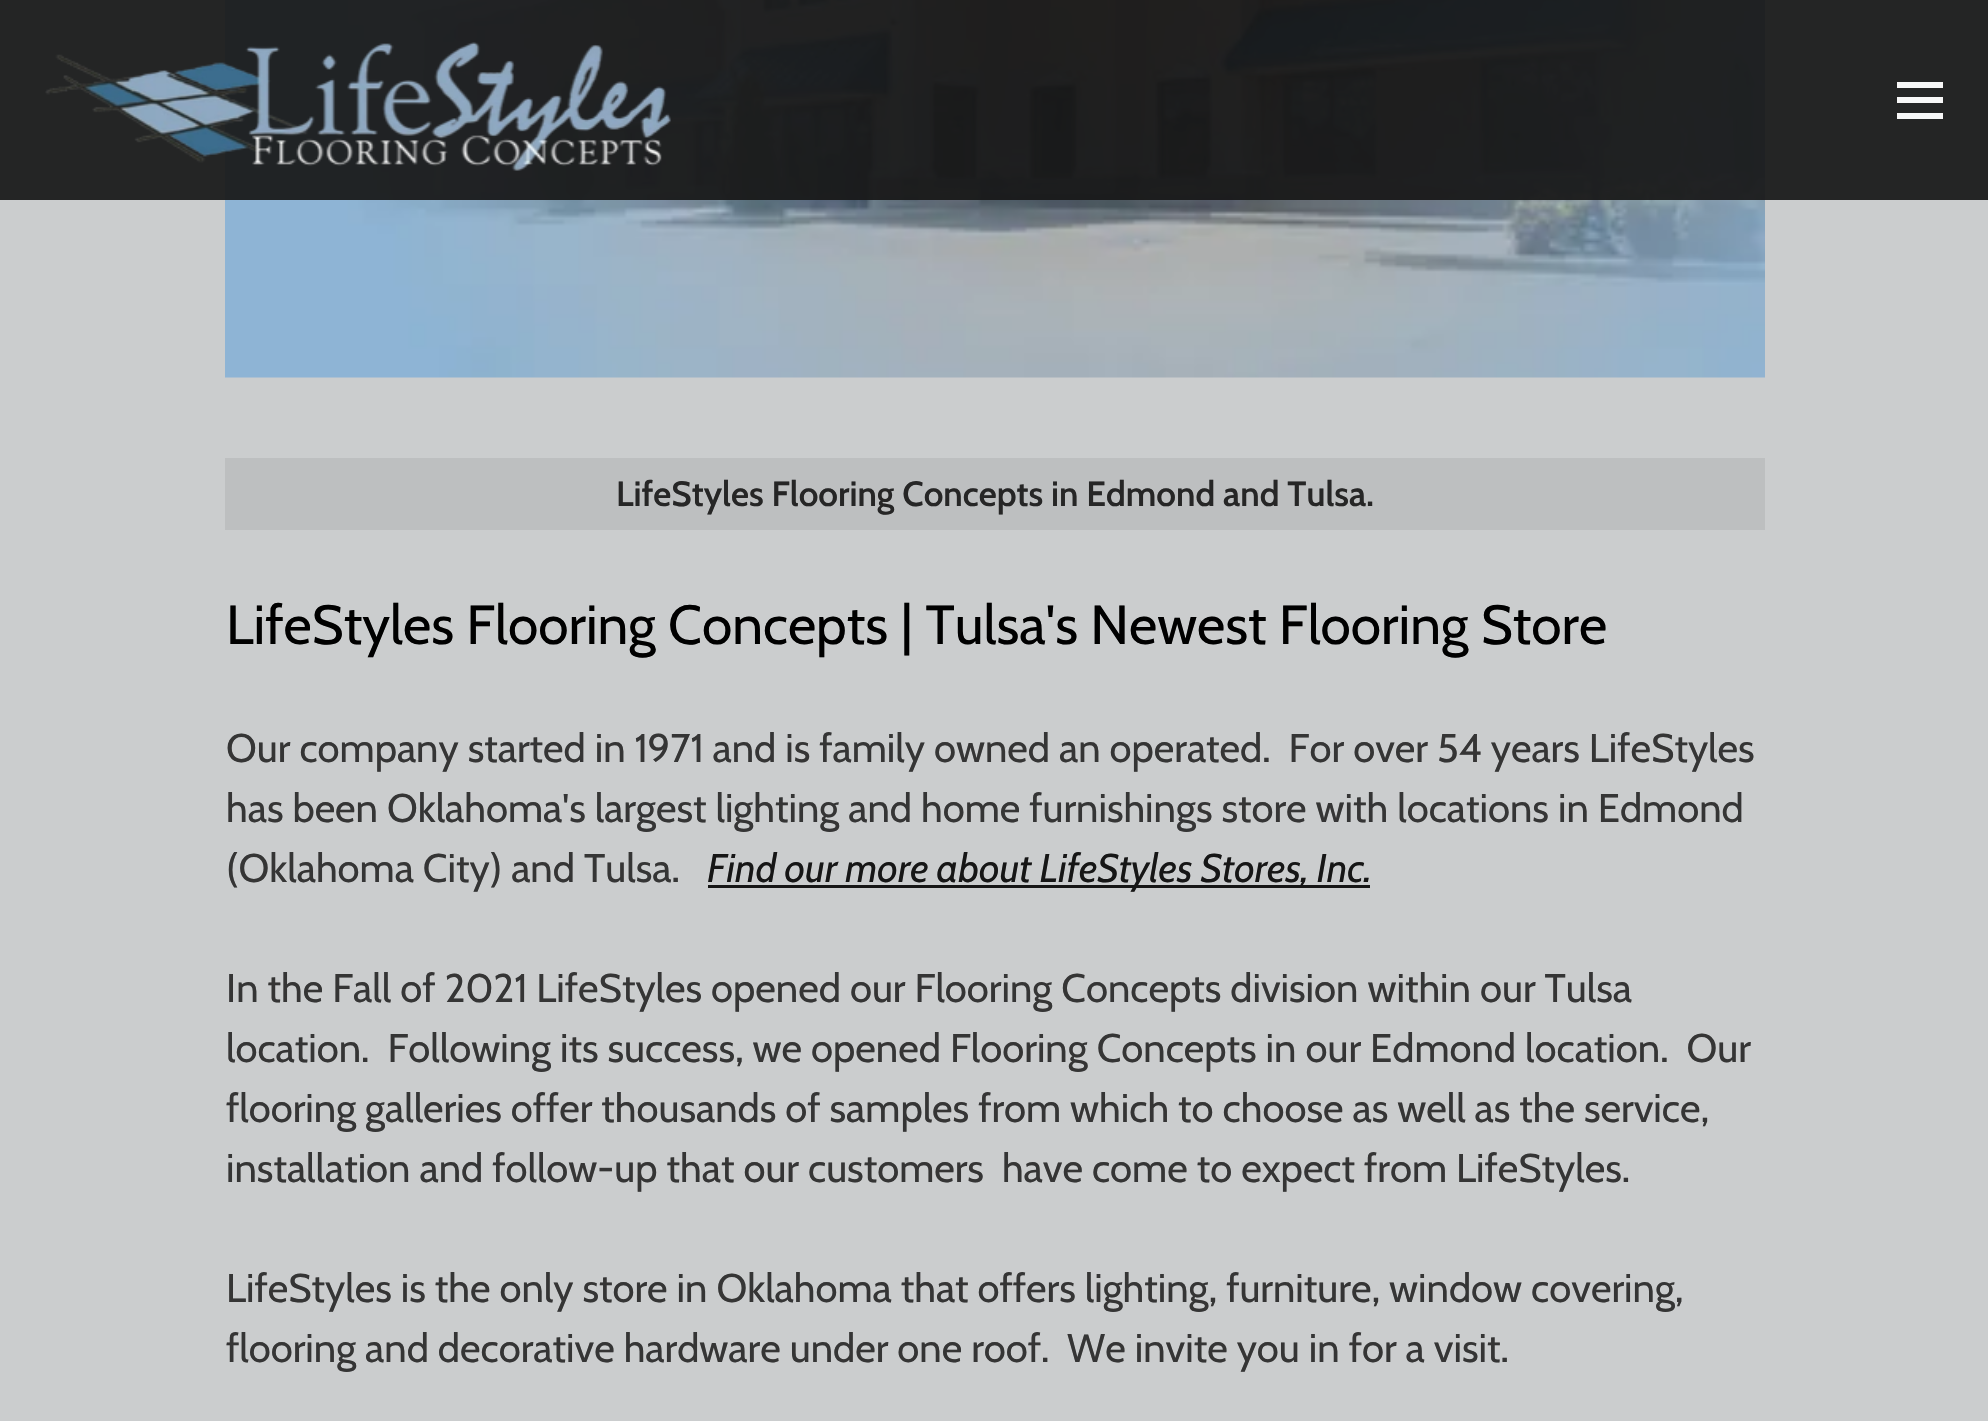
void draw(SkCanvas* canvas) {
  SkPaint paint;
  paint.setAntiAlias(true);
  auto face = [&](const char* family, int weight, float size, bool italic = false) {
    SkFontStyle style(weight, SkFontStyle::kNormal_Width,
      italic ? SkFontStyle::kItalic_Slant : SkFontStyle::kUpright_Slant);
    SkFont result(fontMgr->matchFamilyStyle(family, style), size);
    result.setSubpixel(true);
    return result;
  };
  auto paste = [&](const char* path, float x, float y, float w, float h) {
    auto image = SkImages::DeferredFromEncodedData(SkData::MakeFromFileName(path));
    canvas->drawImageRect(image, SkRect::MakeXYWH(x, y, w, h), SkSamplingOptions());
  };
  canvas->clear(0xffcbcdce);
  paste("img/2.png", 225, 0, 1540, 378);
  paint.setColor(0xe6161616);
  canvas->drawRect(SkRect::MakeXYWH(0, 0, 1988, 200), paint);
  paint.setColor(0x40161616);
  canvas->drawRect(SkRect::MakeXYWH(0, 0, 1988, 200), paint);
  paste("img/1.png", 45, 42, 626, 129);
  {
    const struct { float x, y, w, h; SkColor color; } items[] = {
      {1897, 82, 46, 6, 0xfff7f7f7},
      {1897, 97, 46, 6, 0xfff7f7f7},
      {1897, 113, 46, 6, 0xfff7f7f7},
      {225, 458, 1540, 72, 0xffbdbfc0},
      {708, 885, 662, 3, 0xff161616},
    };
    for (auto [x, y, w, h, color] : items) {
      paint.setColor(color);
      canvas->drawRect(SkRect::MakeXYWH(x, y, w, h), paint);
    }
  }
  auto f0 = face("Cabin", 600, 35);
  paint.setColor(0xff262626);
  canvas->drawString("LifeStyles Flooring Concepts in Edmond and Tulsa.", 616, 506, f0, paint);
  auto f1 = face("Cabin", 400, 55);
  paint.setColor(0xff000000);
  canvas->drawString("LifeStyles Flooring Concepts | Tulsa's Newest Flooring Store", 226, 644, f1, paint);
  auto f2 = face("Cabin", 400, 40);
  paint.setColor(0xff353535);
  {
    const struct { const char* s; float x, y; } items[] = {
      {"Our company started in 1971 and is family owned an operated.  For over 54 years LifeStyles", 226, 762},
      {"has been Oklahoma's largest lighting and home furnishings store with locations in Edmond", 226, 822},
      {"(Oklahoma City) and Tulsa.", 226, 882},
    };
    for (auto [s, x, y] : items) {
      canvas->drawString(s, x, y, f2, paint);
    }
  }
  auto f3 = face("Cabin", 400, 40, true);
  paint.setColor(0xff161616);
  canvas->drawString("Find our more about LifeStyles Stores, Inc.", 707, 882, f3, paint);
  paint.setColor(0xff353535);
  {
    const struct { const char* s; float x, y; } items[] = {
      {"In the Fall of 2021 LifeStyles opened our Flooring Concepts division within our Tulsa", 226, 1002},
      {"location.  Following its success, we opened Flooring Concepts in our Edmond location.  Our", 226, 1062},
      {"flooring galleries offer thousands of samples from which to choose as well as the service,", 226, 1122},
      {"installation and follow-up that our customers  have come to expect from LifeStyles.", 226, 1182},
      {"LifeStyles is the only store in Oklahoma that offers lighting, furniture, window covering,", 226, 1302},
      {"flooring and decorative hardware under one roof.  We invite you in for a visit.", 226, 1362},
    };
    for (auto [s, x, y] : items) {
      canvas->drawString(s, x, y, f2, paint);
    }
  }
}
